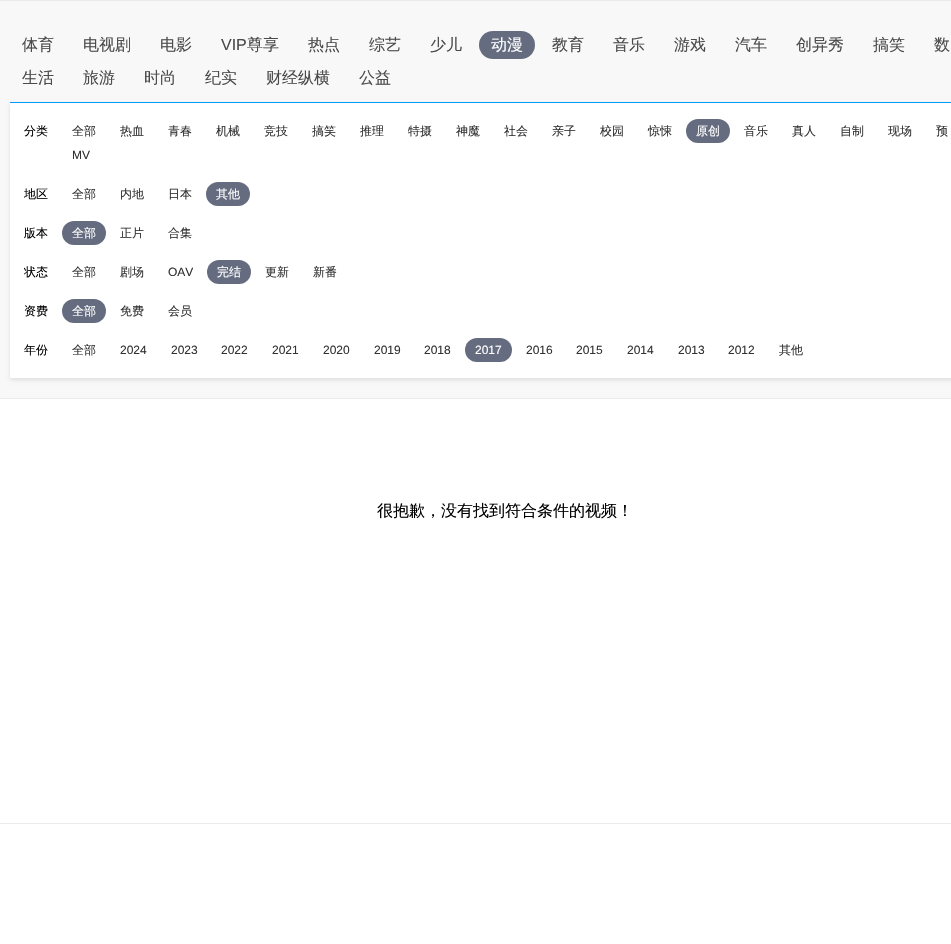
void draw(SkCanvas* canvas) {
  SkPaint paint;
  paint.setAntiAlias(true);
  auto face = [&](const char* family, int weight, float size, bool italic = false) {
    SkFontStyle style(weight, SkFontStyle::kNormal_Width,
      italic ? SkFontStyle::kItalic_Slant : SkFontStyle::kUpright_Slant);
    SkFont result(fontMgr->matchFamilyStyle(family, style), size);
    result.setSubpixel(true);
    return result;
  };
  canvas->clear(0xffffffff);
  {
    const struct { float x, y, w, h; SkColor color; } items[] = {
      {0, 1, 951, 397, 0xfff8f8f8},
      {0, 0, 951, 1, 0xffebebeb},
      {0, 398, 951, 1, 0xffebebeb},
    };
    for (auto [x, y, w, h, color] : items) {
      paint.setColor(color);
      canvas->drawRect(SkRect::MakeXYWH(x, y, w, h), paint);
    }
  }
  paint.setColor(0xff656c80);
  canvas->drawRoundRect(SkRect::MakeXYWH(479, 31, 56, 28), 14, 14, paint);
  paint.setColor(0x1a000000);
  paint.setMaskFilter(SkMaskFilter::MakeBlur(kNormal_SkBlurStyle, 2));
  canvas->drawRect(SkRect::MakeXYWH(10, 104, 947, 276), paint);
  paint.setMaskFilter(nullptr);
  paint.setColor(0xffffffff);
  canvas->drawRect(SkRect::MakeXYWH(10, 103, 941, 275), paint);
  paint.setColor(0xff009bff);
  canvas->drawRect(SkRect::MakeXYWH(10, 102, 941, 1), paint);
  paint.setColor(0xff656c80);
  canvas->drawRoundRect(SkRect::MakeXYWH(686, 119, 44, 24), 12, 12, paint);
  canvas->drawRoundRect(SkRect::MakeXYWH(206, 182, 44, 24), 12, 12, paint);
  canvas->drawRoundRect(SkRect::MakeXYWH(62, 221, 44, 24), 12, 12, paint);
  canvas->drawRoundRect(SkRect::MakeXYWH(207, 260, 44, 24), 12, 12, paint);
  canvas->drawRoundRect(SkRect::MakeXYWH(62, 299, 44, 24), 12, 12, paint);
  canvas->drawRoundRect(SkRect::MakeXYWH(465, 338, 47, 24), 12, 12, paint);
  paint.setColor(0xffebebeb);
  canvas->drawRect(SkRect::MakeXYWH(0, 823, 951, 1), paint);
  auto f0 = face("WenQuanYi Zen Hei", 500, 16);
  paint.setColor(0xff4a4a4a);
  {
    const struct { const char* s; float x, y; } items[] = {
      {"体育", 22, 50},
      {"电视剧", 83, 50},
      {"电影", 160, 50},
    };
    for (auto [s, x, y] : items) {
      canvas->drawString(s, x, y, f0, paint);
    }
  }
  auto f1 = face("Liberation Sans", 400, 16);
  canvas->drawString("VIP", 221, 50, f1, paint);
  {
    const struct { const char* s; float x, y; } items[] = {
      {"尊享", 247, 50},
      {"热点", 308, 50},
      {"综艺", 369, 50},
      {"少儿", 430, 50},
    };
    for (auto [s, x, y] : items) {
      canvas->drawString(s, x, y, f0, paint);
    }
  }
  paint.setColor(0xffffffff);
  canvas->drawString("动漫", 491, 50, f0, paint);
  paint.setColor(0xff4a4a4a);
  {
    const struct { const char* s; float x, y; } items[] = {
      {"教育", 552, 50},
      {"音乐", 613, 50},
      {"游戏", 674, 50},
      {"汽车", 735, 50},
      {"创异秀", 796, 50},
      {"搞笑", 873, 50},
      {"数", 934, 50},
      {"生活", 22, 83},
      {"旅游", 83, 83},
      {"时尚", 144, 83},
      {"纪实", 205, 83},
      {"财经纵横", 266, 83},
      {"公益", 359, 83},
    };
    for (auto [s, x, y] : items) {
      canvas->drawString(s, x, y, f0, paint);
    }
  }
  auto f2 = face("WenQuanYi Zen Hei", 500, 12);
  paint.setColor(0xff000000);
  canvas->drawString("分类", 24, 135, f2, paint);
  paint.setColor(0xff323232);
  {
    const struct { const char* s; float x, y; } items[] = {
      {"全部", 72, 135},
      {"热血", 120, 135},
      {"青春", 168, 135},
      {"机械", 216, 135},
      {"竞技", 264, 135},
      {"搞笑", 312, 135},
      {"推理", 360, 135},
      {"特摄", 408, 135},
      {"神魔", 456, 135},
      {"社会", 504, 135},
      {"亲子", 552, 135},
      {"校园", 600, 135},
      {"惊悚", 648, 135},
    };
    for (auto [s, x, y] : items) {
      canvas->drawString(s, x, y, f2, paint);
    }
  }
  paint.setColor(0xffffffff);
  canvas->drawString("原创", 696, 135, f2, paint);
  paint.setColor(0xff323232);
  {
    const struct { const char* s; float x, y; } items[] = {
      {"音乐", 744, 135},
      {"真人", 792, 135},
      {"自制", 840, 135},
      {"现场", 888, 135},
      {"预", 936, 135},
    };
    for (auto [s, x, y] : items) {
      canvas->drawString(s, x, y, f2, paint);
    }
  }
  auto f3 = face("Liberation Sans", 400, 12);
  canvas->drawString("MV", 72, 159, f3, paint);
  paint.setColor(0xff000000);
  canvas->drawString("地区", 24, 198, f2, paint);
  paint.setColor(0xff323232);
  {
    const struct { const char* s; float x, y; } items[] = {
      {"全部", 72, 198},
      {"内地", 120, 198},
      {"日本", 168, 198},
    };
    for (auto [s, x, y] : items) {
      canvas->drawString(s, x, y, f2, paint);
    }
  }
  paint.setColor(0xffffffff);
  canvas->drawString("其他", 216, 198, f2, paint);
  paint.setColor(0xff000000);
  canvas->drawString("版本", 24, 237, f2, paint);
  paint.setColor(0xffffffff);
  canvas->drawString("全部", 72, 237, f2, paint);
  paint.setColor(0xff323232);
  canvas->drawString("正片", 120, 237, f2, paint);
  canvas->drawString("合集", 168, 237, f2, paint);
  paint.setColor(0xff000000);
  canvas->drawString("状态", 24, 276, f2, paint);
  paint.setColor(0xff323232);
  canvas->drawString("全部", 72, 276, f2, paint);
  canvas->drawString("剧场", 120, 276, f2, paint);
  canvas->drawString("OAV", 168, 276, f3, paint);
  paint.setColor(0xffffffff);
  canvas->drawString("完结", 217, 276, f2, paint);
  paint.setColor(0xff323232);
  canvas->drawString("更新", 265, 276, f2, paint);
  canvas->drawString("新番", 313, 276, f2, paint);
  paint.setColor(0xff000000);
  canvas->drawString("资费", 24, 315, f2, paint);
  paint.setColor(0xffffffff);
  canvas->drawString("全部", 72, 315, f2, paint);
  paint.setColor(0xff323232);
  canvas->drawString("免费", 120, 315, f2, paint);
  canvas->drawString("会员", 168, 315, f2, paint);
  paint.setColor(0xff000000);
  canvas->drawString("年份", 24, 354, f2, paint);
  paint.setColor(0xff323232);
  canvas->drawString("全部", 72, 354, f2, paint);
  {
    const struct { const char* s; float x, y; } items[] = {
      {"2024", 120, 354},
      {"2023", 171, 354},
      {"2022", 221, 354},
      {"2021", 272, 354},
      {"2020", 323, 354},
      {"2019", 374, 354},
      {"2018", 424, 354},
    };
    for (auto [s, x, y] : items) {
      canvas->drawString(s, x, y, f3, paint);
    }
  }
  paint.setColor(0xffffffff);
  canvas->drawString("2017", 475, 354, f3, paint);
  paint.setColor(0xff323232);
  {
    const struct { const char* s; float x, y; } items[] = {
      {"2016", 526, 354},
      {"2015", 576, 354},
      {"2014", 627, 354},
      {"2013", 678, 354},
      {"2012", 728, 354},
    };
    for (auto [s, x, y] : items) {
      canvas->drawString(s, x, y, f3, paint);
    }
  }
  canvas->drawString("其他", 779, 354, f2, paint);
  paint.setColor(0xff000000);
  canvas->drawString("很抱歉，没有找到符合条件的视频！", 377, 516, f0, paint);
}
